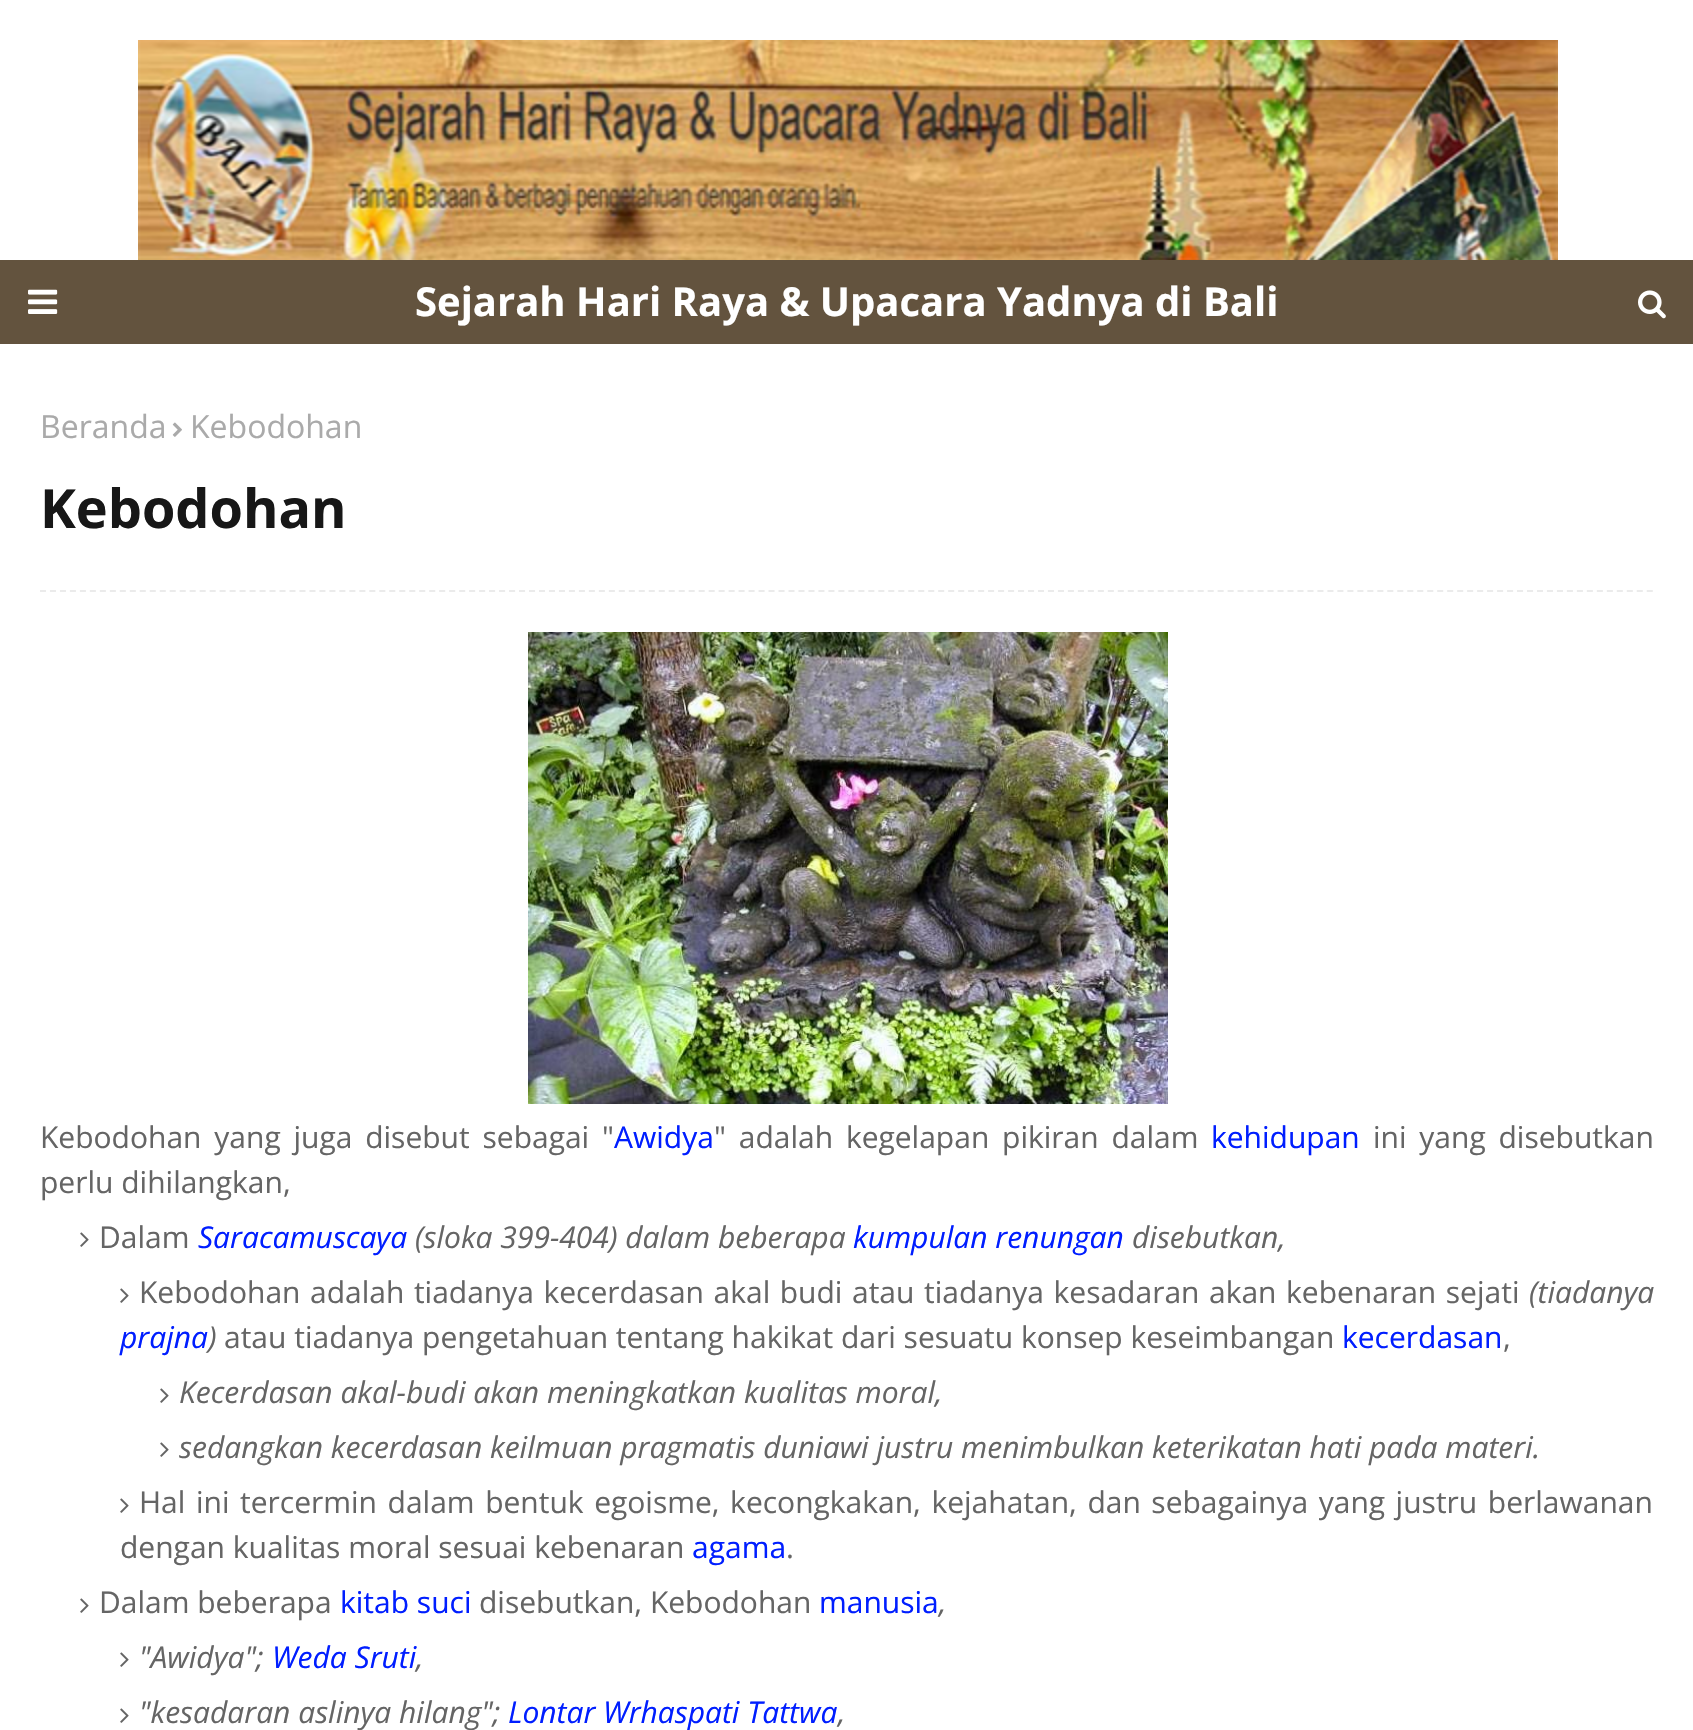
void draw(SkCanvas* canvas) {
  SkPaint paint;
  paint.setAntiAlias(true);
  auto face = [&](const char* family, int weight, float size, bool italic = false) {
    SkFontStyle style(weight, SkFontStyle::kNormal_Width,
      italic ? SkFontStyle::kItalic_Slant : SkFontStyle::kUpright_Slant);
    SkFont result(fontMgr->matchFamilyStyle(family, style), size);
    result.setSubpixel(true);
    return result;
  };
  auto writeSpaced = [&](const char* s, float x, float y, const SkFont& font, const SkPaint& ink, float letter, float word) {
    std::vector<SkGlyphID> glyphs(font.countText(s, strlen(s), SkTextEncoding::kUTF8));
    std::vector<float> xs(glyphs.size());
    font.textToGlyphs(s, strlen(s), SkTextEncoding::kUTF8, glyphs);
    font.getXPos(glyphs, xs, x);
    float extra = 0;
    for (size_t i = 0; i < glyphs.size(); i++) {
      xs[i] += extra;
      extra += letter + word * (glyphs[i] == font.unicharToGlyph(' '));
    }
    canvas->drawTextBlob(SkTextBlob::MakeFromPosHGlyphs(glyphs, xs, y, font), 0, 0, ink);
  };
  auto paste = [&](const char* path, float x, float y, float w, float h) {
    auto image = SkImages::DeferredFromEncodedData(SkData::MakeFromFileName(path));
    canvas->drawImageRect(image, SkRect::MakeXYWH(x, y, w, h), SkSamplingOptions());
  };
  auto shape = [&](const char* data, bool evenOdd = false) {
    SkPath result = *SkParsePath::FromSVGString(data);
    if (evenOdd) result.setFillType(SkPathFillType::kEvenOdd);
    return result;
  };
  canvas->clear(0xffffffff);
  paste("img/1.png", 138, 40, 1420, 220);
  paint.setColor(0xff63533e);
  canvas->drawRect(SkRect::MakeXYWH(0, 260, 1693, 84), paint);
  paste("img/2.png", 28, 289, 30, 25);
  paste("img/3.png", 1638, 290, 28, 29);
  paste("img/4.png", 172, 422, 10, 15);
  paint.setStroke(true);
  paint.setStrokeWidth(2);
  paint.setColor(0xffebebeb);
  paint.setPathEffect(SkDashPathEffect::Make({{6, 3.98f}}, 0));
  canvas->drawPath(shape("M40 591H1654"), paint);
  paint.setPathEffect(nullptr);
  paste("img/5.png", 528, 632, 640, 472);
  paste("img/6.png", 80, 1232, 9, 15);
  paste("img/6.png", 120, 1288, 9, 15);
  paste("img/6.png", 160, 1388, 9, 15);
  paste("img/6.png", 160, 1442, 9, 15);
  paste("img/6.png", 120, 1498, 9, 15);
  paste("img/6.png", 80, 1598, 9, 15);
  paste("img/6.png", 120, 1652, 9, 15);
  paste("img/6.png", 120, 1708, 9, 15);
  auto f0 = face("Open Sans", 700, 40);
  paint.setStroke(false);
  paint.setColor(0xffffffff);
  canvas->drawString("Sejarah Hari Raya & Upacara Yadnya di Bali", 415, 316, f0, paint);
  auto f1 = face("Open Sans", 400, 32);
  paint.setColor(0xffaaaaaa);
  canvas->drawString("Beranda", 40, 438, f1, paint);
  canvas->drawString("Kebodohan", 190, 438, f1, paint);
  auto f2 = face("Open Sans", 700, 54);
  paint.setColor(0xff171717);
  canvas->drawString("Kebodohan", 40, 528, f2, paint);
  auto f3 = face("Open Sans", 400, 30);
  paint.setColor(0xff656565);
  writeSpaced("Kebodohan yang juga disebut sebagai \"", 40, 1148, f3, paint, 0, 5);
  paint.setColor(0xff001eff);
  canvas->drawString("Awidya", 614, 1148, f3, paint);
  paint.setColor(0xff656565);
  writeSpaced("\" adalah kegelapan pikiran dalam", 714, 1148, f3, paint, 0, 5);
  paint.setColor(0xff001eff);
  canvas->drawString("kehidupan", 1211, 1148, f3, paint);
  paint.setColor(0xff656565);
  writeSpaced("ini yang disebutkan", 1373, 1148, f3, paint, 0, 5);
  canvas->drawString("perlu dihilangkan,", 40, 1193, f3, paint);
  canvas->drawString("Dalam", 99, 1248, f3, paint);
  auto f4 = face("Open Sans", 400, 30, true);
  paint.setColor(0xff001eff);
  canvas->drawString("Saracamuscaya", 198, 1248, f4, paint);
  paint.setColor(0xff656565);
  canvas->drawString("(sloka 399-404) dalam beberapa", 415, 1248, f4, paint);
  paint.setColor(0xff001eff);
  canvas->drawString("kumpulan renungan", 853, 1248, f4, paint);
  paint.setColor(0xff656565);
  canvas->drawString("disebutkan,", 1132, 1248, f4, paint);
  writeSpaced("Kebodohan adalah tiadanya kecerdasan akal budi atau tiadanya kesadaran akan kebenaran sejati", 139, 1303, f3, paint, 0, 1.75f);
  canvas->drawString("(tiadanya", 1529, 1303, f4, paint);
  paint.setColor(0xff001eff);
  canvas->drawString("prajna", 120, 1348, f4, paint);
  paint.setColor(0xff656565);
  canvas->drawString(")", 208, 1348, f4, paint);
  canvas->drawString("atau tiadanya pengetahuan tentang hakikat dari sesuatu konsep keseimbangan", 224, 1348, f3, paint);
  paint.setColor(0xff001eff);
  canvas->drawString("kecerdasan", 1342, 1348, f3, paint);
  paint.setColor(0xff656565);
  canvas->drawString(",", 1503, 1348, f3, paint);
  canvas->drawString("Kecerdasan akal-budi akan meningkatkan kualitas moral,", 179, 1403, f4, paint);
  canvas->drawString("sedangkan kecerdasan keilmuan pragmatis duniawi justru menimbulkan keterikatan hati pada materi.", 179, 1458, f4, paint);
  writeSpaced("Hal ini tercermin dalam bentuk egoisme, kecongkakan, kejahatan, dan sebagainya yang justru berlawanan", 139, 1513, f3, paint, 0, 2.75f);
  canvas->drawString("dengan kualitas moral sesuai kebenaran", 120, 1558, f3, paint);
  paint.setColor(0xff001eff);
  canvas->drawString("agama", 692, 1558, f3, paint);
  paint.setColor(0xff656565);
  canvas->drawString(".", 786, 1558, f3, paint);
  canvas->drawString("Dalam beberapa", 99, 1613, f3, paint);
  paint.setColor(0xff001eff);
  canvas->drawString("kitab suci", 340, 1613, f3, paint);
  paint.setColor(0xff656565);
  canvas->drawString("disebutkan, Kebodohan", 479, 1613, f3, paint);
  paint.setColor(0xff001eff);
  canvas->drawString("manusia", 819, 1613, f3, paint);
  paint.setColor(0xff656565);
  canvas->drawString(",", 939, 1613, f4, paint);
  canvas->drawString("\"Awidya\";", 139, 1668, f4, paint);
  paint.setColor(0xff001eff);
  canvas->drawString("Weda Sruti", 272, 1668, f4, paint);
  paint.setColor(0xff656565);
  canvas->drawString(",", 416, 1668, f4, paint);
  canvas->drawString("\"kesadaran aslinya hilang\";", 139, 1723, f4, paint);
  paint.setColor(0xff001eff);
  canvas->drawString("Lontar Wrhaspati Tattwa", 508, 1723, f4, paint);
  paint.setColor(0xff656565);
  canvas->drawString(",", 838, 1723, f4, paint);
}
